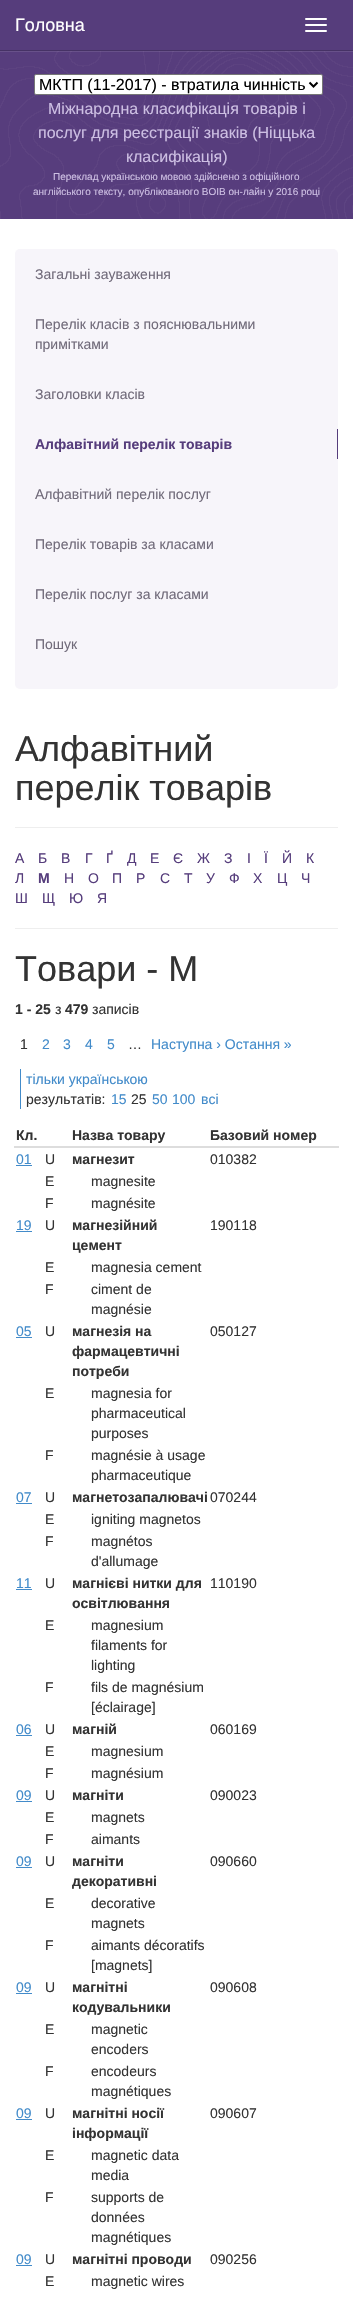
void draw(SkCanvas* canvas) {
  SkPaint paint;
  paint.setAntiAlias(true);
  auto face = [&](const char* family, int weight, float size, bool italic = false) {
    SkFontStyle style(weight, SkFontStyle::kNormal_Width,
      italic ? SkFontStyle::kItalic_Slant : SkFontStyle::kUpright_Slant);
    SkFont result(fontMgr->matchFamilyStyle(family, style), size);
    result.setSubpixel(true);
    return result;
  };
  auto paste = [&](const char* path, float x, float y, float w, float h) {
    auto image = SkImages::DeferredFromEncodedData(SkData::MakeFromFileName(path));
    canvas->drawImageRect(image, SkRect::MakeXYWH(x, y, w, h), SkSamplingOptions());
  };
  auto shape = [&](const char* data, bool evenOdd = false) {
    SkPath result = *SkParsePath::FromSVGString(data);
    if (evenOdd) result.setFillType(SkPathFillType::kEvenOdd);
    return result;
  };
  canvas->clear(0xffffffff);
  paste("img/1.png", 0, 51, 353, 168);
  {
    const struct { float x, y, w, h; SkColor color; } items[] = {
      {0, 51, 353, 1, 0x1affffff},
      {0, 0, 353, 50, 0xff563d7c},
      {0, 50, 353, 1, 0xff463265},
    };
    for (auto [x, y, w, h, color] : items) {
      paint.setColor(color);
      canvas->drawRect(SkRect::MakeXYWH(x, y, w, h), paint);
    }
  }
  paint.setColor(0xffffffff);
  canvas->drawRoundRect(SkRect::MakeXYWH(305, 18, 22, 2), 1, 1, paint);
  canvas->drawRoundRect(SkRect::MakeXYWH(305, 24, 22, 2), 1, 1, paint);
  canvas->drawRoundRect(SkRect::MakeXYWH(305, 30, 22, 2), 1, 1, paint);
  canvas->drawRoundRect(SkRect::MakeXYWH(34.5f, 74.5f, 288, 20), 1.5f, 1.5f, paint);
  paint.setStroke(true);
  paint.setStrokeWidth(1);
  paint.setColor(0xff767676);
  canvas->drawRoundRect(SkRect::MakeXYWH(34.5f, 74.5f, 288, 20), 1.5f, 1.5f, paint);
  paint.setStrokeWidth(2);
  paint.setColor(0xff000000);
  canvas->drawPath(shape("M309.5 82.5L313.5 86.5L317.5 82.5"), paint);
  paint.setStroke(false);
  paint.setColor(0xfff7f5fa);
  canvas->drawRoundRect(SkRect::MakeXYWH(15, 249, 323, 440), 5, 5, paint);
  {
    const struct { float x, y, w, h; SkColor color; } items[] = {
      {337, 429, 1, 30, 0xff563d7c},
      {15, 827, 323, 1, 0xffeeeeee},
      {15, 928, 323, 1, 0xffeeeeee},
      {20, 1069, 1, 40, 0xff428bca},
      {14, 1146, 325, 2, 0xffdddddd},
      {16, 1165, 16, 1, 0xff428bca},
      {16, 1231, 16, 1, 0xff428bca},
      {16, 1337, 16, 1, 0xff428bca},
      {16, 1503, 16, 1, 0xff428bca},
      {16, 1589, 16, 1, 0xff428bca},
      {16, 1735, 16, 1, 0xff428bca},
      {16, 1801, 16, 1, 0xff428bca},
      {16, 1867, 16, 1, 0xff428bca},
      {16, 1993, 16, 1, 0xff428bca},
      {16, 2119, 16, 1, 0xff428bca},
      {16, 2265, 16, 1, 0xff428bca},
    };
    for (auto [x, y, w, h, color] : items) {
      paint.setColor(color);
      canvas->drawRect(SkRect::MakeXYWH(x, y, w, h), paint);
    }
  }
  auto f0 = face("Liberation Sans", 400, 18);
  paint.setColor(0xffffffff);
  canvas->drawString("Головна", 15, 31, f0, paint);
  auto f1 = face("Liberation Sans", 400, 16);
  paint.setColor(0xff000000);
  canvas->drawString("МКТП (11-2017) - втратила чинність", 39, 90, f1, paint);
  paint.setColor(0xffcdbfe3);
  {
    const struct { const char* s; float x, y; } items[] = {
      {"Міжнародна класифікація товарів і", 48, 114},
      {"послуг для реєстрації знаків (Ніццька", 38, 138},
      {"класифікація)", 126, 162},
    };
    for (auto [s, x, y] : items) {
      canvas->drawString(s, x, y, f1, paint);
    }
  }
  auto f2 = face("Liberation Sans", 400, 10);
  canvas->drawString("Переклад українською мовою здійснено з офіційного", 53, 180, f2, paint);
  canvas->drawString("англійського тексту, опублікованого ВОІВ он-лайн у 2016 році", 33, 195, f2, paint);
  auto f3 = face("Liberation Sans", 400, 14);
  paint.setColor(0xff716b7a);
  {
    const struct { const char* s; float x, y; } items[] = {
      {"Загальні зауваження", 35, 279},
      {"Перелік класів з пояснювальними", 35, 329},
      {"примітками", 35, 349},
      {"Заголовки класів", 35, 399},
    };
    for (auto [s, x, y] : items) {
      canvas->drawString(s, x, y, f3, paint);
    }
  }
  auto f4 = face("Liberation Sans", 700, 14);
  paint.setColor(0xff563d7c);
  canvas->drawString("Алфавітний перелік товарів", 35, 449, f4, paint);
  paint.setColor(0xff716b7a);
  {
    const struct { const char* s; float x, y; } items[] = {
      {"Алфавітний перелік послуг", 35, 499},
      {"Перелік товарів за класами", 35, 549},
      {"Перелік послуг за класами", 35, 599},
      {"Пошук", 35, 649},
    };
    for (auto [s, x, y] : items) {
      canvas->drawString(s, x, y, f3, paint);
    }
  }
  auto f5 = face("Liberation Sans", 400, 36);
  paint.setColor(0xff333333);
  canvas->drawString("Алфавітний", 15, 761, f5, paint);
  canvas->drawString("перелік товарів", 15, 800, f5, paint);
  paint.setColor(0xff563d7c);
  {
    const struct { const char* s; float x, y; } items[] = {
      {"А", 15, 863},
      {"Б", 38, 863},
      {"В", 61, 863},
      {"Г", 85, 863},
      {"Ґ", 106, 863},
      {"Д", 127, 863},
      {"Е", 150, 863},
      {"Є", 173, 863},
      {"Ж", 197, 863},
      {"З", 224, 863},
      {"І", 247, 863},
      {"Ї", 264, 863},
      {"Й", 282, 863},
      {"К", 306, 863},
      {"Л", 15, 883},
    };
    for (auto [s, x, y] : items) {
      canvas->drawString(s, x, y, f3, paint);
    }
  }
  canvas->drawString("М", 38, 883, f4, paint);
  {
    const struct { const char* s; float x, y; } items[] = {
      {"Н", 64, 883},
      {"О", 88, 883},
      {"П", 112, 883},
      {"Р", 136, 883},
      {"С", 160, 883},
      {"Т", 184, 883},
      {"У", 206, 883},
      {"Ф", 229, 883},
      {"Х", 253, 883},
      {"Ц", 277, 883},
      {"Ч", 301, 883},
      {"Ш", 15, 903},
      {"Щ", 42, 903},
      {"Ю", 69, 903},
      {"Я", 97, 903},
    };
    for (auto [s, x, y] : items) {
      canvas->drawString(s, x, y, f3, paint);
    }
  }
  paint.setColor(0xff333333);
  canvas->drawString("Товари - М", 15, 981, f5, paint);
  canvas->drawString("1 - 25", 15, 1014, f4, paint);
  canvas->drawString("з", 55, 1014, f3, paint);
  canvas->drawString("479", 65, 1014, f4, paint);
  canvas->drawString("записів", 92, 1014, f3, paint);
  canvas->drawString("1", 20, 1049, f3, paint);
  paint.setColor(0xff428bca);
  {
    const struct { const char* s; float x, y; } items[] = {
      {"2", 42, 1049},
      {"3", 63, 1049},
      {"4", 85, 1049},
      {"5", 107, 1049},
    };
    for (auto [s, x, y] : items) {
      canvas->drawString(s, x, y, f3, paint);
    }
  }
  paint.setColor(0xff333333);
  canvas->drawString("…", 128, 1049, f3, paint);
  paint.setColor(0xff428bca);
  canvas->drawString("Наступна › Остання »", 151, 1049, f3, paint);
  canvas->drawString("тільки українською", 26, 1084, f3, paint);
  paint.setColor(0xff333333);
  canvas->drawString("результатів:", 26, 1104, f3, paint);
  paint.setColor(0xff428bca);
  canvas->drawString("15", 111, 1104, f3, paint);
  paint.setColor(0xff333333);
  canvas->drawString("25", 131, 1104, f3, paint);
  paint.setColor(0xff428bca);
  {
    const struct { const char* s; float x, y; } items[] = {
      {"50", 152, 1104},
      {"100", 172, 1104},
      {"всі", 201, 1104},
    };
    for (auto [s, x, y] : items) {
      canvas->drawString(s, x, y, f3, paint);
    }
  }
  paint.setColor(0xff333333);
  {
    const struct { const char* s; float x, y; } items[] = {
      {"Кл.", 16, 1140},
      {"Назва товару", 72, 1140},
      {"Базовий номер", 210, 1140},
    };
    for (auto [s, x, y] : items) {
      canvas->drawString(s, x, y, f4, paint);
    }
  }
  paint.setColor(0xff428bca);
  canvas->drawString("01", 16, 1164, f3, paint);
  paint.setColor(0xff333333);
  canvas->drawString("U", 45, 1164, f3, paint);
  canvas->drawString("магнезит", 72, 1164, f4, paint);
  {
    const struct { const char* s; float x, y; } items[] = {
      {"010382", 210, 1164},
      {"E", 45, 1186},
      {"magnesite", 91, 1186},
      {"F", 45, 1208},
      {"magnésite", 91, 1208},
    };
    for (auto [s, x, y] : items) {
      canvas->drawString(s, x, y, f3, paint);
    }
  }
  paint.setColor(0xff428bca);
  canvas->drawString("19", 16, 1230, f3, paint);
  paint.setColor(0xff333333);
  canvas->drawString("U", 45, 1230, f3, paint);
  canvas->drawString("магнезійний", 72, 1230, f4, paint);
  canvas->drawString("цемент", 72, 1250, f4, paint);
  {
    const struct { const char* s; float x, y; } items[] = {
      {"190118", 210, 1230},
      {"E", 45, 1272},
      {"magnesia cement", 91, 1272},
      {"F", 45, 1294},
      {"ciment de", 91, 1294},
      {"magnésie", 91, 1314},
    };
    for (auto [s, x, y] : items) {
      canvas->drawString(s, x, y, f3, paint);
    }
  }
  paint.setColor(0xff428bca);
  canvas->drawString("05", 16, 1336, f3, paint);
  paint.setColor(0xff333333);
  canvas->drawString("U", 45, 1336, f3, paint);
  {
    const struct { const char* s; float x, y; } items[] = {
      {"магнезія на", 72, 1336},
      {"фармацевтичні", 72, 1356},
      {"потреби", 72, 1376},
    };
    for (auto [s, x, y] : items) {
      canvas->drawString(s, x, y, f4, paint);
    }
  }
  {
    const struct { const char* s; float x, y; } items[] = {
      {"050127", 210, 1336},
      {"E", 45, 1398},
      {"magnesia for", 91, 1398},
      {"pharmaceutical", 91, 1418},
      {"purposes", 91, 1438},
      {"F", 45, 1460},
      {"magnésie à usage", 91, 1460},
      {"pharmaceutique", 91, 1480},
    };
    for (auto [s, x, y] : items) {
      canvas->drawString(s, x, y, f3, paint);
    }
  }
  paint.setColor(0xff428bca);
  canvas->drawString("07", 16, 1502, f3, paint);
  paint.setColor(0xff333333);
  canvas->drawString("U", 45, 1502, f3, paint);
  canvas->drawString("магнетозапалювачі", 72, 1502, f4, paint);
  {
    const struct { const char* s; float x, y; } items[] = {
      {"070244", 210, 1502},
      {"E", 45, 1524},
      {"igniting magnetos", 91, 1524},
      {"F", 45, 1546},
      {"magnétos", 91, 1546},
      {"d'allumage", 91, 1566},
    };
    for (auto [s, x, y] : items) {
      canvas->drawString(s, x, y, f3, paint);
    }
  }
  paint.setColor(0xff428bca);
  canvas->drawString("11", 16, 1588, f3, paint);
  paint.setColor(0xff333333);
  canvas->drawString("U", 45, 1588, f3, paint);
  canvas->drawString("магнієві нитки для", 72, 1588, f4, paint);
  canvas->drawString("освітлювання", 72, 1608, f4, paint);
  {
    const struct { const char* s; float x, y; } items[] = {
      {"110190", 210, 1588},
      {"E", 45, 1630},
      {"magnesium", 91, 1630},
      {"filaments for", 91, 1650},
      {"lighting", 91, 1670},
      {"F", 45, 1692},
      {"fils de magnésium", 91, 1692},
      {"[éclairage]", 91, 1712},
    };
    for (auto [s, x, y] : items) {
      canvas->drawString(s, x, y, f3, paint);
    }
  }
  paint.setColor(0xff428bca);
  canvas->drawString("06", 16, 1734, f3, paint);
  paint.setColor(0xff333333);
  canvas->drawString("U", 45, 1734, f3, paint);
  canvas->drawString("магній", 72, 1734, f4, paint);
  {
    const struct { const char* s; float x, y; } items[] = {
      {"060169", 210, 1734},
      {"E", 45, 1756},
      {"magnesium", 91, 1756},
      {"F", 45, 1778},
      {"magnésium", 91, 1778},
    };
    for (auto [s, x, y] : items) {
      canvas->drawString(s, x, y, f3, paint);
    }
  }
  paint.setColor(0xff428bca);
  canvas->drawString("09", 16, 1800, f3, paint);
  paint.setColor(0xff333333);
  canvas->drawString("U", 45, 1800, f3, paint);
  canvas->drawString("магніти", 72, 1800, f4, paint);
  {
    const struct { const char* s; float x, y; } items[] = {
      {"090023", 210, 1800},
      {"E", 45, 1822},
      {"magnets", 91, 1822},
      {"F", 45, 1844},
      {"aimants", 91, 1844},
    };
    for (auto [s, x, y] : items) {
      canvas->drawString(s, x, y, f3, paint);
    }
  }
  paint.setColor(0xff428bca);
  canvas->drawString("09", 16, 1866, f3, paint);
  paint.setColor(0xff333333);
  canvas->drawString("U", 45, 1866, f3, paint);
  canvas->drawString("магніти", 72, 1866, f4, paint);
  canvas->drawString("декоративні", 72, 1886, f4, paint);
  {
    const struct { const char* s; float x, y; } items[] = {
      {"090660", 210, 1866},
      {"E", 45, 1908},
      {"decorative", 91, 1908},
      {"magnets", 91, 1928},
      {"F", 45, 1950},
      {"aimants décoratifs", 91, 1950},
      {"[magnets]", 91, 1970},
    };
    for (auto [s, x, y] : items) {
      canvas->drawString(s, x, y, f3, paint);
    }
  }
  paint.setColor(0xff428bca);
  canvas->drawString("09", 16, 1992, f3, paint);
  paint.setColor(0xff333333);
  canvas->drawString("U", 45, 1992, f3, paint);
  canvas->drawString("магнітні", 72, 1992, f4, paint);
  canvas->drawString("кодувальники", 72, 2012, f4, paint);
  {
    const struct { const char* s; float x, y; } items[] = {
      {"090608", 210, 1992},
      {"E", 45, 2034},
      {"magnetic", 91, 2034},
      {"encoders", 91, 2054},
      {"F", 45, 2076},
      {"encodeurs", 91, 2076},
      {"magnétiques", 91, 2096},
    };
    for (auto [s, x, y] : items) {
      canvas->drawString(s, x, y, f3, paint);
    }
  }
  paint.setColor(0xff428bca);
  canvas->drawString("09", 16, 2118, f3, paint);
  paint.setColor(0xff333333);
  canvas->drawString("U", 45, 2118, f3, paint);
  canvas->drawString("магнітні носії", 72, 2118, f4, paint);
  canvas->drawString("інформації", 72, 2138, f4, paint);
  {
    const struct { const char* s; float x, y; } items[] = {
      {"090607", 210, 2118},
      {"E", 45, 2160},
      {"magnetic data", 91, 2160},
      {"media", 91, 2180},
      {"F", 45, 2202},
      {"supports de", 91, 2202},
      {"données", 91, 2222},
      {"magnétiques", 91, 2242},
    };
    for (auto [s, x, y] : items) {
      canvas->drawString(s, x, y, f3, paint);
    }
  }
  paint.setColor(0xff428bca);
  canvas->drawString("09", 16, 2264, f3, paint);
  paint.setColor(0xff333333);
  canvas->drawString("U", 45, 2264, f3, paint);
  canvas->drawString("магнітні проводи", 72, 2264, f4, paint);
  {
    const struct { const char* s; float x, y; } items[] = {
      {"090256", 210, 2264},
      {"E", 45, 2286},
      {"magnetic wires", 91, 2286},
    };
    for (auto [s, x, y] : items) {
      canvas->drawString(s, x, y, f3, paint);
    }
  }
}
